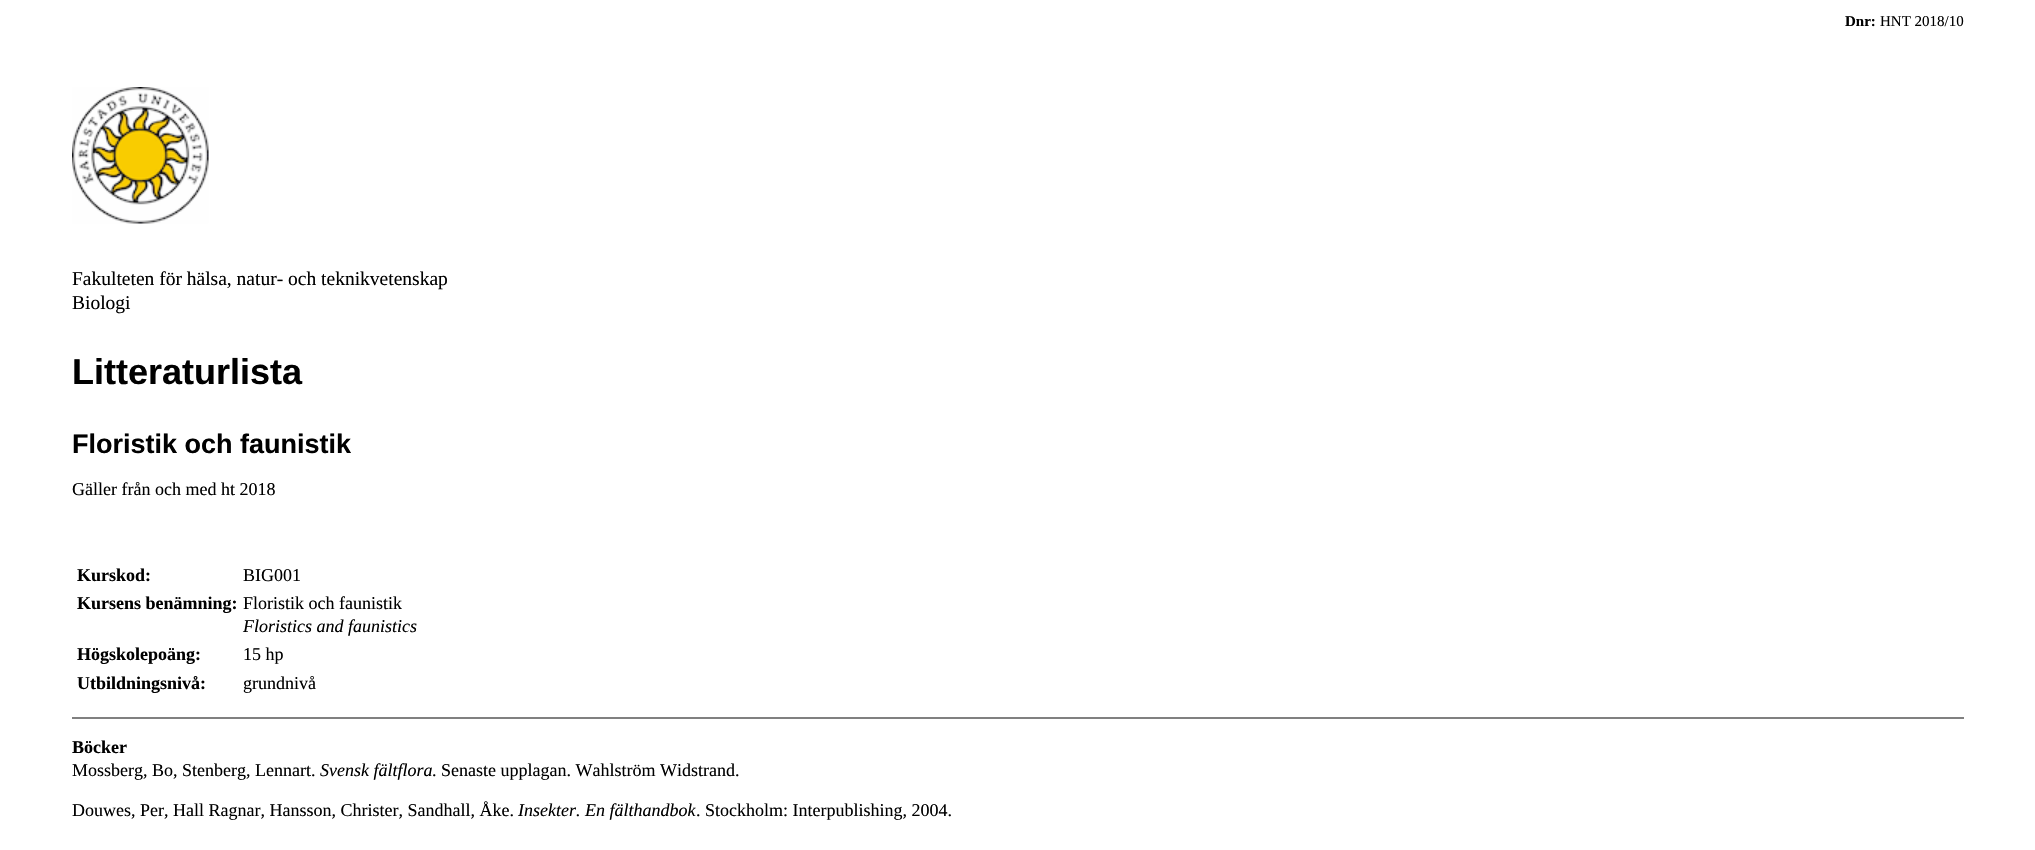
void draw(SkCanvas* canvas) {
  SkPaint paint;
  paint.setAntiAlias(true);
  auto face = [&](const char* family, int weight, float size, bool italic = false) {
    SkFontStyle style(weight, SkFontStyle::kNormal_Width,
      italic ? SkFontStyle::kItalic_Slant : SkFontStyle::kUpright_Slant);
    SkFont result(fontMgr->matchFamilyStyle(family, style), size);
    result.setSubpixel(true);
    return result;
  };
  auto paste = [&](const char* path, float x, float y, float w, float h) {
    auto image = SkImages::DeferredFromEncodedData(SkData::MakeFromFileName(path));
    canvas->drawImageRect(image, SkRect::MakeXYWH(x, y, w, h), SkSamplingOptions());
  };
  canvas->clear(0xffffffff);
  paste("img/1.png", 72, 87, 137, 137);
  paint.setColor(0xff808080);
  canvas->drawRect(SkRect::MakeXYWH(72, 717, 1892, 2), paint);
  auto f0 = face("Liberation Serif", 700, 15);
  paint.setColor(0xff000000);
  canvas->drawString("Dnr:", 1845, 26, f0, paint);
  auto f1 = face("Liberation Serif", 400, 15);
  canvas->drawString("HNT 2018/10", 1880, 26, f1, paint);
  auto f2 = face("Liberation Serif", 400, 19.5f);
  canvas->drawString("Fakulteten för hälsa, natur- och teknikvetenskap", 72, 285, f2, paint);
  canvas->drawString("Biologi", 72, 309, f2, paint);
  auto f3 = face("Liberation Sans", 700, 36);
  canvas->drawString("Litteraturlista", 72, 384, f3, paint);
  auto f4 = face("Liberation Sans", 700, 27);
  canvas->drawString("Floristik och faunistik", 72, 453, f4, paint);
  auto f5 = face("Liberation Serif", 400, 18);
  canvas->drawString("Gäller från och med ht 2018", 72, 495, f5, paint);
  auto f6 = face("Liberation Serif", 700, 18);
  canvas->drawString("Kurskod:", 77, 581, f6, paint);
  canvas->drawString("BIG001", 243, 581, f5, paint);
  canvas->drawString("Kursens benämning:", 77, 609, f6, paint);
  canvas->drawString("Floristik och faunistik", 243, 609, f5, paint);
  auto f7 = face("Liberation Serif", 400, 18, true);
  canvas->drawString("Floristics and faunistics", 243, 632, f7, paint);
  canvas->drawString("Högskolepoäng:", 77, 660, f6, paint);
  canvas->drawString("15 hp", 243, 660, f5, paint);
  canvas->drawString("Utbildningsnivå:", 77, 689, f6, paint);
  canvas->drawString("grundnivå", 243, 689, f5, paint);
  canvas->drawString("Böcker", 72, 753, f6, paint);
  canvas->drawString("Mossberg, Bo, Stenberg, Lennart.", 72, 776, f5, paint);
  canvas->drawString("Svensk fältflora", 320, 776, f7, paint);
  canvas->drawString(". Senaste upplagan. Wahlström Widstrand.", 432, 776, f5, paint);
  canvas->drawString("Douwes, Per, Hall Ragnar, Hansson, Christer, Sandhall, Åke.", 72, 816, f5, paint);
  canvas->drawString("Insekter. En fälthandbok", 518, 816, f7, paint);
  canvas->drawString(". Stockholm: Interpublishing, 2004.", 696, 816, f5, paint);
}
